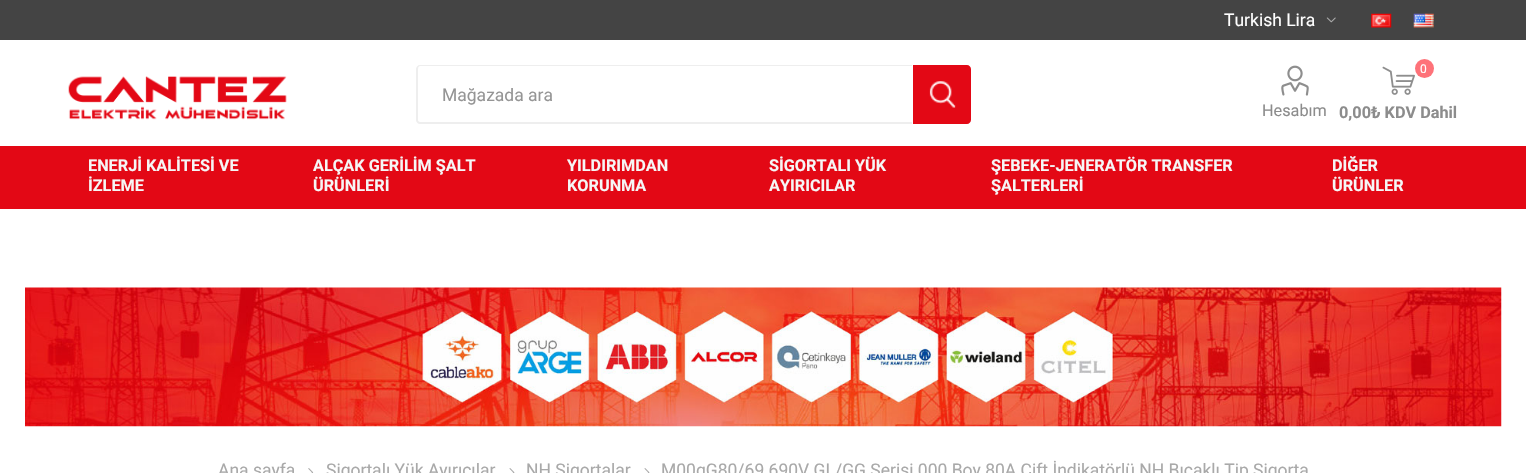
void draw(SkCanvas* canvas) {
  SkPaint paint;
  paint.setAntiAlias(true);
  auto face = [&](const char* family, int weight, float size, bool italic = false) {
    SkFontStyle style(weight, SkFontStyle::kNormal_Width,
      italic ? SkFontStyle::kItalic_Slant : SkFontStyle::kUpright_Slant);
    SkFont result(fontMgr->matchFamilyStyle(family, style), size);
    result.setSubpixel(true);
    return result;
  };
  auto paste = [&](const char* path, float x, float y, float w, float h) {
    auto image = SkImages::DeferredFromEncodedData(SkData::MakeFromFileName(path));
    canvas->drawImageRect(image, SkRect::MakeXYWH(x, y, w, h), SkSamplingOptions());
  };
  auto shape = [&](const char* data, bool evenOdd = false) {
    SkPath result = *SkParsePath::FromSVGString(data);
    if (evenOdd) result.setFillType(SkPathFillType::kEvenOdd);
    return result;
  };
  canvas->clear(0xffffffff);
  paint.setColor(0xff444444);
  canvas->drawRect(SkRect::MakeXYWH(0, 0, 1526, 40), paint);
  paste("img/1.png", 1326, 17, 10, 6);
  paste("img/2.png", 1371, 13, 21, 15);
  paste("img/3.png", 1413, 13, 21, 15);
  paste("img/4.png", 68, 76, 219, 44);
  paint.setColor(0xffeeeeee);
  canvas->drawPath(shape("M420 65H912V124H420C418 124 416 122 416 120V69C416 67 418 65 420 65ZM420 66H912V122H420C419 122 418 121 418 120V69C418 67 419 66 420 66Z", true), paint);
  paint.setColor(0xffe30815);
  canvas->drawPath(shape("M913 65H967C969 65 971 67 971 69V120C971 122 969 124 967 124H913Z"), paint);
  paste("img/5.png", 929, 81, 27, 27);
  paste("img/6.png", 1281, 65, 28, 31);
  paste("img/7.png", 1382, 66, 33, 29);
  paint.setColor(0xfffe7279);
  canvas->drawCircle(1424.5f, 68.5f, 9.5f, paint);
  paint.setColor(0xffe30815);
  canvas->drawRect(SkRect::MakeXYWH(0, 146, 1526, 63), paint);
  paste("img/8.png", 25, 287, 1477, 140);
  paste("img/9.png", 308, 468, 6, 5);
  paste("img/10.png", 509, 468, 6, 5);
  paste("img/10.png", 644, 468, 6, 5);
  auto f0 = face("Roboto", 400, 17.5f);
  paint.setColor(0xffffffff);
  canvas->drawString("Turkish Lira", 1224, 26, f0, paint);
  paint.setColor(0xff959595);
  canvas->drawString("Mağazada ara", 442, 101, f0, paint);
  auto f1 = face("Roboto", 400, 16.25f);
  paint.setColor(0xff8c8c8c);
  canvas->drawString("Hesabım", 1262, 116, f1, paint);
  auto f2 = face("Roboto", 400, 12);
  paint.setColor(0xffffffff);
  canvas->drawString("0", 1420, 73, f2, paint);
  auto f3 = face("Roboto", 700, 16.25f);
  paint.setColor(0xff8c8c8c);
  canvas->drawString("0,00₺ KDV Dahil", 1339, 118, f3, paint);
  paint.setColor(0xfff6f6f6);
  {
    const struct { const char* s; float x, y; } items[] = {
      {"ENERJİ KALİTESİ VE", 88, 171},
      {"İZLEME", 88, 191},
      {"ALÇAK GERİLİM ŞALT", 313, 171},
      {"ÜRÜNLERİ", 313, 191},
      {"YILDIRIMDAN", 567, 171},
      {"KORUNMA", 567, 191},
      {"SİGORTALI YÜK", 769, 171},
      {"AYIRICILAR", 769, 191},
      {"ŞEBEKE-JENERATÖR TRANSFER", 991, 171},
      {"ŞALTERLERİ", 991, 191},
      {"DİĞER", 1332, 171},
      {"ÜRÜNLER", 1332, 191},
    };
    for (auto [s, x, y] : items) {
      canvas->drawString(s, x, y, f3, paint);
    }
  }
  paint.setColor(0xffa9a9a9);
  {
    const struct { const char* s; float x, y; } items[] = {
      {"Ana sayfa", 218, 476},
      {"Sigortalı Yük Ayırıcılar", 326, 476},
      {"NH Sigortalar", 526, 476},
      {"M00gG80/69 690V GL/GG Serisi 000 Boy 80A Çift İndikatörlü NH Bıçaklı Tip Sigorta", 661, 476},
    };
    for (auto [s, x, y] : items) {
      canvas->drawString(s, x, y, f0, paint);
    }
  }
}
